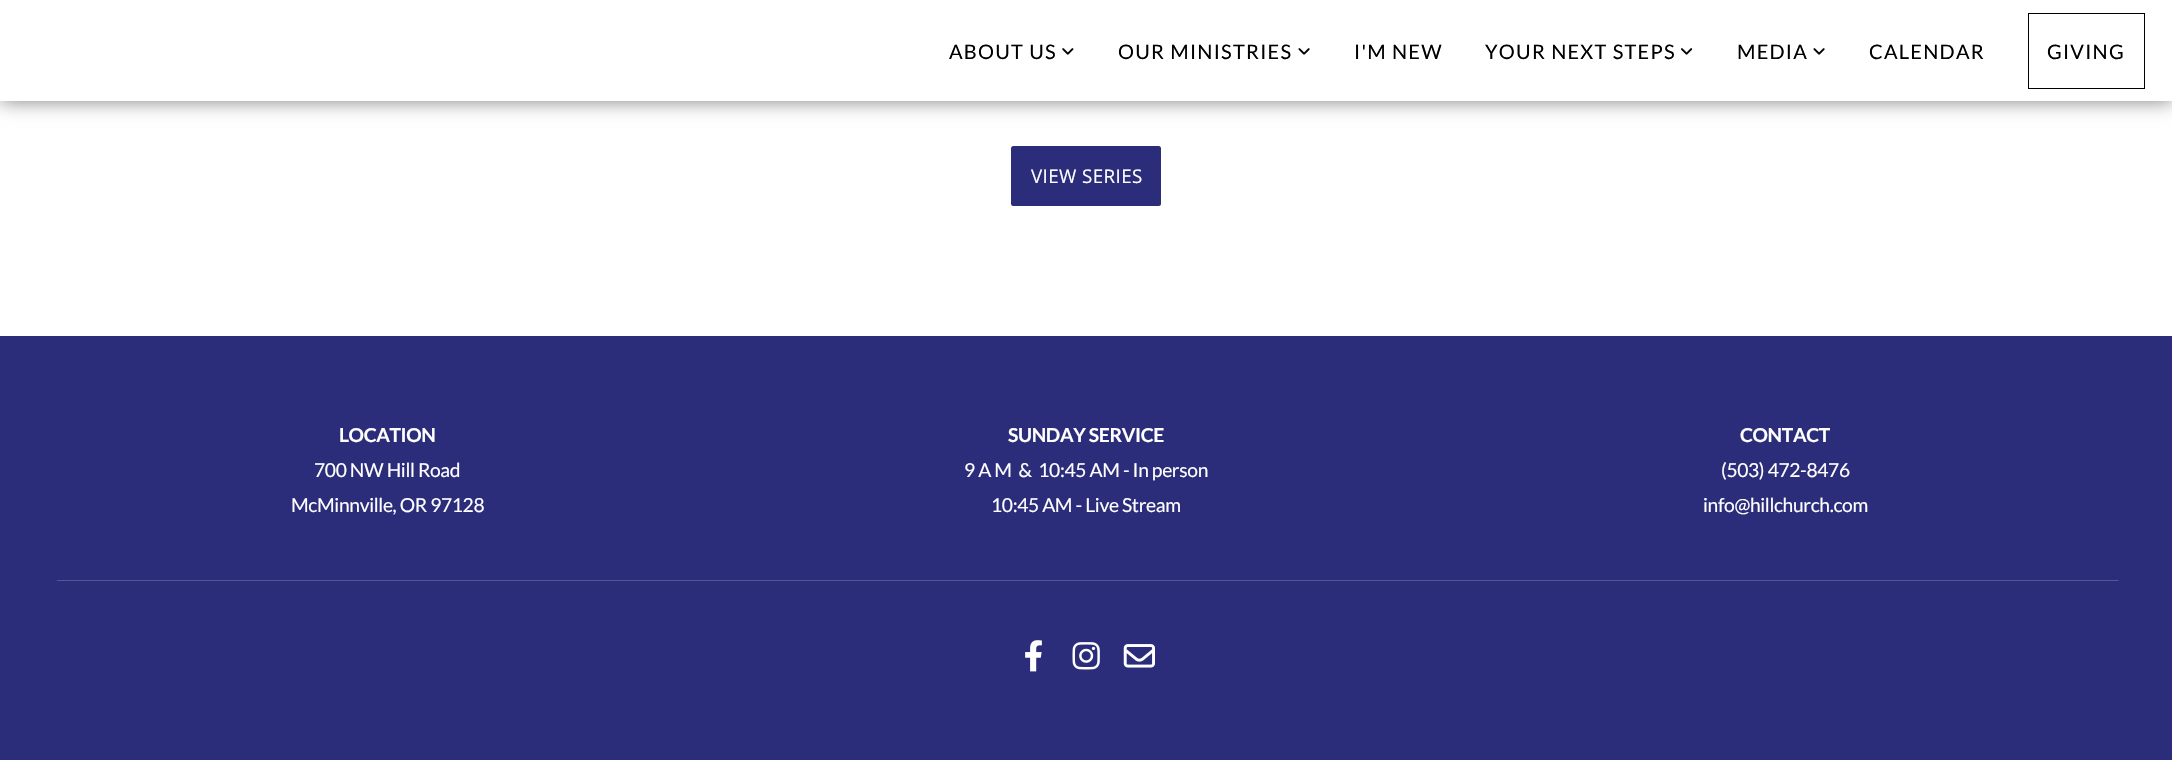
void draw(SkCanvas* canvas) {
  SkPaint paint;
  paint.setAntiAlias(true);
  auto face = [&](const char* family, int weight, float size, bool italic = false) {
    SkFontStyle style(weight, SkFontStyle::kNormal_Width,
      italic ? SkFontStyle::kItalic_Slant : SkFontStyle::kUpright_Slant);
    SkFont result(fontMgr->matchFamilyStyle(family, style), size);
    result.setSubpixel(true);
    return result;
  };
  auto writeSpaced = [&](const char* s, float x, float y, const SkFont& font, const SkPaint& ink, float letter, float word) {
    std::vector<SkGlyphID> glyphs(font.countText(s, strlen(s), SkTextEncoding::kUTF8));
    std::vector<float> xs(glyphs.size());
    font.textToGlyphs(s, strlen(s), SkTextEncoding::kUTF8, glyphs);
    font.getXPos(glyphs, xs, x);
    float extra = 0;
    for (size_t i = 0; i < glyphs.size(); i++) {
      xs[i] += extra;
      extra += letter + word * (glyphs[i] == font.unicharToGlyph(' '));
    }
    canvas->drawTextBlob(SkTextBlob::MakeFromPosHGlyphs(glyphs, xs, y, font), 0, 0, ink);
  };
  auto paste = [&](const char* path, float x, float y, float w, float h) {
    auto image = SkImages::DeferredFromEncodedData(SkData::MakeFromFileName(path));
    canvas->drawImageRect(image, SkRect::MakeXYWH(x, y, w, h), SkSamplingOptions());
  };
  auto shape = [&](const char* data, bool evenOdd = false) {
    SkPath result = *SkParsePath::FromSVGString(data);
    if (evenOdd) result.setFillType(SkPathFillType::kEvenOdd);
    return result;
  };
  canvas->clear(0xffffffff);
  paint.setColor(0x80000000);
  paint.setMaskFilter(SkMaskFilter::MakeBlur(kNormal_SkBlurStyle, 9.5f));
  canvas->drawRect(SkRect::MakeXYWH(0, 0, 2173, 101), paint);
  paint.setMaskFilter(nullptr);
  paint.setColor(0xffffffff);
  canvas->drawRect(SkRect::MakeXYWH(0, 0, 2172, 101), paint);
  paste("img/1.png", 1062, 48, 12, 7);
  paste("img/2.png", 1298, 48, 12, 7);
  paste("img/3.png", 1681, 48, 12, 7);
  paste("img/2.png", 1813, 48, 12, 7);
  paint.setStroke(true);
  paint.setStrokeWidth(1);
  paint.setColor(0xff000000);
  canvas->drawRect(SkRect::MakeXYWH(2028.5f, 13.5f, 116, 75), paint);
  paint.setStroke(false);
  paint.setColor(0xff2b2d7b);
  canvas->drawRoundRect(SkRect::MakeXYWH(1011, 146, 150, 60), 2.5f, 2.5f, paint);
  canvas->drawRect(SkRect::MakeXYWH(0, 336, 2172, 424), paint);
  paint.setColor(0xff555795);
  canvas->drawPath(shape("M2119 581H56L58 580H2118Z"), paint);
  paste("img/4.png", 1025, 640, 17, 32);
  paste("img/5.png", 1072, 642, 28, 28);
  paste("img/6.png", 1123, 644, 32, 24);
  auto f0 = face("Lato", 400, 20);
  paint.setColor(0xff000000);
  {
    const struct { const char* s; float x, y; } items[] = {
      {"ABOUT US", 949, 59},
      {"OUR MINISTRIES", 1118, 59},
      {"I'M NEW", 1354, 59},
      {"YOUR NEXT STEPS", 1485, 59},
      {"MEDIA", 1737, 59},
      {"CALENDAR", 1869, 59},
      {"GIVING", 2047, 59},
    };
    for (auto [s, x, y] : items) {
      writeSpaced(s, x, y, f0, paint, 1.25f, 0);
    }
  }
  auto f1 = face("Open Sans", 400, 18.75f);
  paint.setColor(0xffffffff);
  writeSpaced("VIEW SERIES", 1031, 183, f1, paint, 0.4f, 0);
  auto f2 = face("Lato", 700, 19.25f);
  writeSpaced("LOCATION", 339, 442, f2, paint, -0.35f, 0);
  auto f3 = face("Lato", 400, 19.25f);
  writeSpaced("700 NW Hill Road", 314, 477, f3, paint, -0.35f, 0);
  writeSpaced("McMinnville, OR 97128", 291, 512, f3, paint, -0.35f, 0);
  writeSpaced("SUNDAY SERVICE", 1008, 442, f2, paint, -0.35f, 0);
  writeSpaced("9 A M  &  10:45 AM - In person", 964, 477, f3, paint, -0.35f, 0);
  writeSpaced("10:45 AM - Live Stream", 991, 512, f3, paint, -0.35f, 0);
  writeSpaced("CONTACT", 1740, 442, f2, paint, -0.35f, 0);
  writeSpaced("(503) 472-8476", 1721, 477, f3, paint, -0.35f, 0);
  writeSpaced("info@hillchurch.com", 1703, 512, f3, paint, -0.35f, 0);
}
